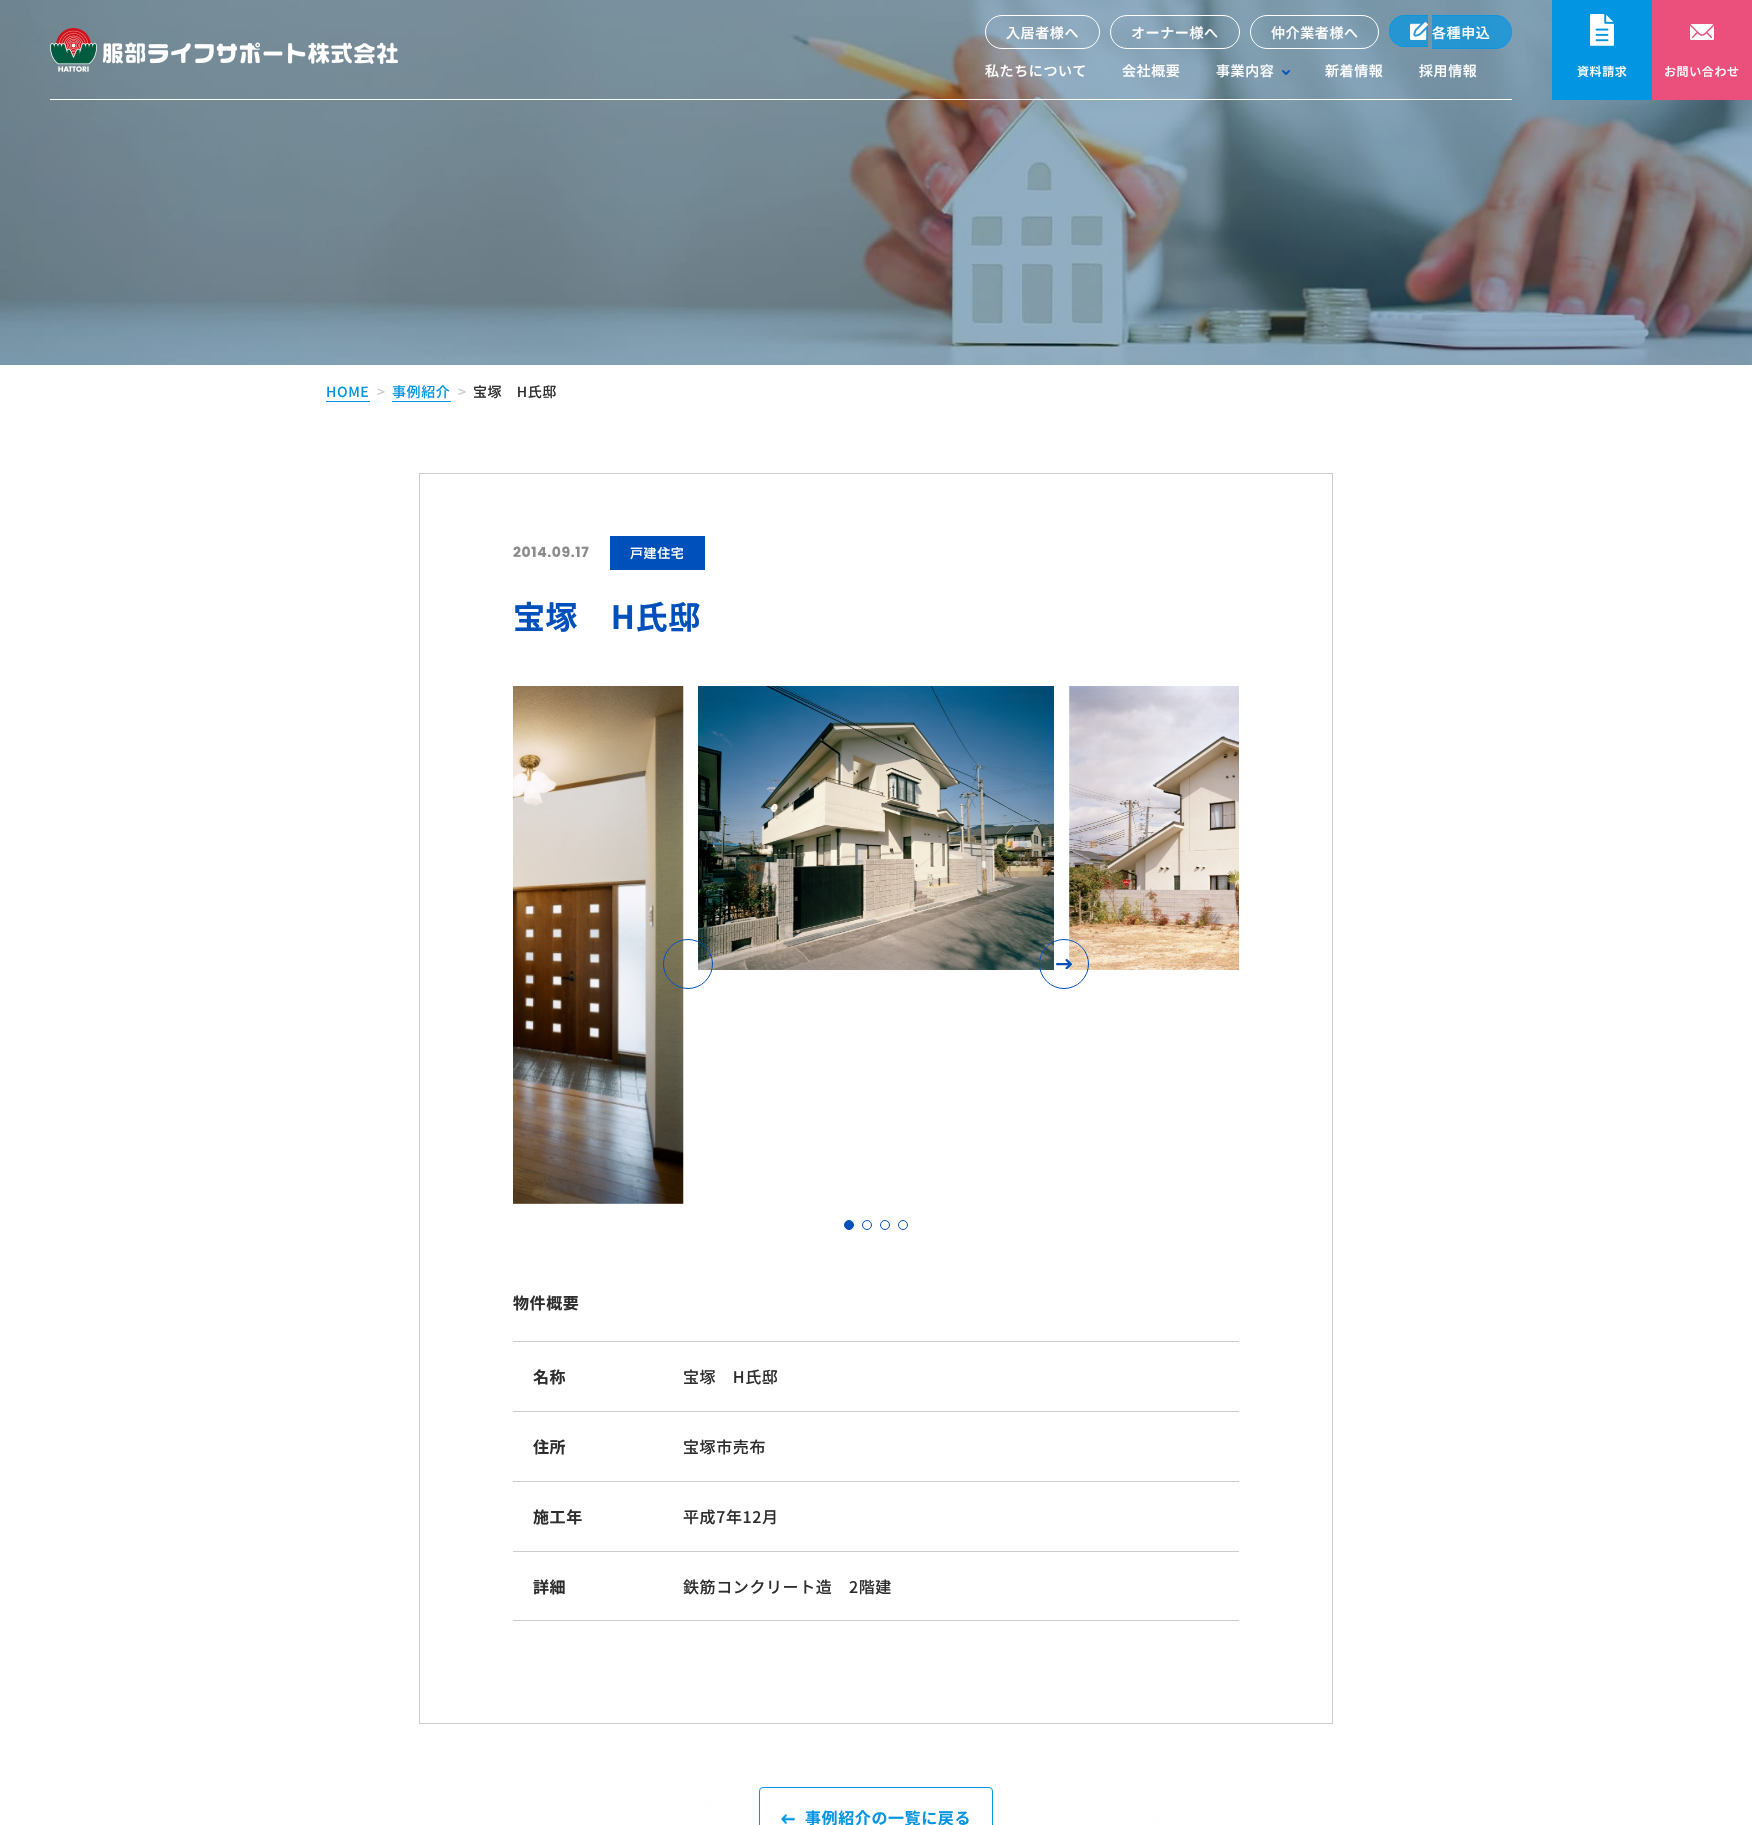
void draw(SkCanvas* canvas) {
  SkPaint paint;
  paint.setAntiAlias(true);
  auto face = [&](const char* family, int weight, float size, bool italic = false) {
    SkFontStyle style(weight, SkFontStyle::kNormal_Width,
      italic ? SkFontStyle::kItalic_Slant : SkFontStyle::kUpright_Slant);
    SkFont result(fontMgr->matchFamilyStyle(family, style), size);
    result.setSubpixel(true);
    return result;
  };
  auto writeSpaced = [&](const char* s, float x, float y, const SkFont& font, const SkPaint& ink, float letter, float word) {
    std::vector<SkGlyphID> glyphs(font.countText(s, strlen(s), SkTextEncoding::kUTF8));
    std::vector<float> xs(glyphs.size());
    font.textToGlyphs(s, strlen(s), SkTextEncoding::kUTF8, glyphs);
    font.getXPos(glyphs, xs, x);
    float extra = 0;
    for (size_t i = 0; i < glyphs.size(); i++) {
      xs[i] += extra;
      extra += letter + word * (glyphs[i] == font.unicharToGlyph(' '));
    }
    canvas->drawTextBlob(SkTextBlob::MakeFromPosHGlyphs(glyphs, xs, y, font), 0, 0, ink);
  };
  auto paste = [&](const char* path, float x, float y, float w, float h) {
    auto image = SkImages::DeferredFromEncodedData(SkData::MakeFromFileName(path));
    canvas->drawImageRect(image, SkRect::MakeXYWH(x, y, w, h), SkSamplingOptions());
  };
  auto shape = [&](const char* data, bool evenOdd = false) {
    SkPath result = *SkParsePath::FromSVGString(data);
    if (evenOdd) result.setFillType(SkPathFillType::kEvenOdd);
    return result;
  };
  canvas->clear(0xffffffff);
  paste("img/1.png", 0, 0, 1752, 365);
  paste("img/2.png", 50, 28, 348, 44);
  paint.setStroke(true);
  paint.setStrokeWidth(1);
  paint.setColor(0xffffffff);
  canvas->drawRoundRect(SkRect::MakeXYWH(985.5f, 15.5f, 114, 33), 16.5f, 16.5f, paint);
  canvas->drawRoundRect(SkRect::MakeXYWH(1110.5f, 15.5f, 129, 33), 16.5f, 16.5f, paint);
  canvas->drawRoundRect(SkRect::MakeXYWH(1250.5f, 15.5f, 128, 33), 16.5f, 16.5f, paint);
  paint.setStroke(false);
  paint.setColor(0xb30195e2);
  canvas->drawPath(shape("M1405 15H1428V47H1405C1396 47 1389 40 1389 31C1389 22 1396 15 1405 15Z"), paint);
  canvas->drawPath(shape("M1405 15H1428V47H1405C1396 47 1389 40 1389 31C1389 22 1396 15 1405 15ZM1405 16H1428V46H1405C1396.5 46 1390 39.5 1390 31C1390 22.5 1396.5 16 1405 16Z", true), paint);
  canvas->drawPath(shape("M1432 15H1495C1504.5 15 1512 22.5 1512 32C1512 41.5 1504.5 49 1495 49H1432Z"), paint);
  canvas->drawPath(shape("M1432 15H1495C1504 15 1512 23 1512 32C1512 41 1504 49 1495 49H1432ZM1432 16H1495C1504 16 1511 23 1511 32C1511 41 1504 48 1495 48H1432Z", true), paint);
  paste("img/3.png", 1410, 22, 18, 18);
  paste("img/4.png", 1282, 70, 8, 5);
  paint.setColor(0xff0195e2);
  canvas->drawRect(SkRect::MakeXYWH(1552, 0, 100, 100), paint);
  paste("img/5.png", 1590, 14, 24, 32);
  paint.setColor(0xffeb4f7b);
  canvas->drawRect(SkRect::MakeXYWH(1652, 0, 100, 100), paint);
  paste("img/6.png", 1690, 24, 24, 16);
  {
    const struct { float x, y, w, h; SkColor color; } items[] = {
      {50, 99, 1462, 1, 0xffffffff},
      {326, 401, 44, 1, 0xff0195e2},
      {392, 401, 59, 1, 0xff0195e2},
    };
    for (auto [x, y, w, h, color] : items) {
      paint.setColor(color);
      canvas->drawRect(SkRect::MakeXYWH(x, y, w, h), paint);
    }
  }
  paint.setStroke(true);
  paint.setColor(0xffcccccc);
  canvas->drawRect(SkRect::MakeXYWH(419.5f, 473.5f, 913, 1250), paint);
  paint.setStroke(false);
  paint.setColor(0xff0050bc);
  canvas->drawRect(SkRect::MakeXYWH(610, 536, 95, 34), paint);
  paste("img/7.png", 513, 686, 171, 518);
  paste("img/8.png", 698, 686, 356, 284);
  paste("img/9.png", 1069, 686, 170, 284);
  paint.setStroke(true);
  canvas->drawCircle(688, 964, 24.5f, paint);
  canvas->drawCircle(1064, 964, 24.5f, paint);
  paste("img/10.png", 1056, 959, 16, 10);
  paint.setStroke(false);
  canvas->drawCircle(849, 1225, 4.5f, paint);
  paint.setStroke(true);
  canvas->drawCircle(849, 1225, 4.5f, paint);
  canvas->drawCircle(867, 1225, 4.5f, paint);
  canvas->drawCircle(885, 1225, 4.5f, paint);
  canvas->drawCircle(903, 1225, 4.5f, paint);
  paint.setStroke(false);
  {
    const struct { float x, y, w, h; SkColor color; } items[] = {
      {513, 1341, 726, 1, 0xffcccccc},
      {513, 1411, 726, 1, 0xffcccccc},
      {513, 1481, 726, 1, 0xffcccccc},
      {513, 1551, 726, 1, 0xffcccccc},
      {513, 1620, 726, 1, 0xffcccccc},
    };
    for (auto [x, y, w, h, color] : items) {
      paint.setColor(color);
      canvas->drawRect(SkRect::MakeXYWH(x, y, w, h), paint);
    }
  }
  paste("img/12.png", 401, 1798, 764, 27);
  paint.setStroke(true);
  paint.setColor(0xff0195e2);
  canvas->drawRoundRect(SkRect::MakeXYWH(759.5f, 1787.5f, 233, 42), 3.5f, 3.5f, paint);
  paste("img/11.png", 781, 1814, 14, 10);
  auto f0 = face("Noto Sans JP", 500, 14);
  paint.setStroke(false);
  paint.setColor(0xffffffff);
  {
    const struct { const char* s; float x, y; } items[] = {
      {"入居者様へ", 1006, 38},
      {"オーナー様へ", 1131, 38},
      {"仲介業者様へ", 1271, 38},
      {"各種申込", 1432, 38},
      {"私たちについて", 985, 76},
      {"会社概要", 1122, 76},
      {"事業内容", 1216, 76},
      {"新着情報", 1325, 76},
      {"採用情報", 1419, 76},
    };
    for (auto [s, x, y] : items) {
      writeSpaced(s, x, y, f0, paint, 0.6f, 0);
    }
  }
  auto f1 = face("Noto Sans JP", 500, 12);
  writeSpaced("資料請求", 1577, 76, f1, paint, 0.6f, 0);
  writeSpaced("お問い合わせ", 1664, 76, f1, paint, 0.6f, 0);
  paint.setColor(0xff0195e2);
  writeSpaced("HOME", 326, 397, f0, paint, 0.6f, 0);
  paint.setColor(0xffcccccc);
  writeSpaced(">", 377, 397, f0, paint, 0.6f, 0);
  paint.setColor(0xff0195e2);
  writeSpaced("事例紹介", 392, 397, f0, paint, 0.6f, 0);
  paint.setColor(0xffcccccc);
  writeSpaced(">", 458, 397, f0, paint, 0.6f, 0);
  paint.setColor(0xff2d2d2d);
  writeSpaced("宝塚　H氏邸", 473, 397, f0, paint, 0.6f, 0);
  auto f2 = face("Poppins", 700, 14);
  paint.setColor(0xff8c8c8c);
  writeSpaced("2014.09.17", 513, 557, f2, paint, 0.6f, 0);
  auto f3 = face("Noto Sans JP", 500, 13);
  paint.setColor(0xffffffff);
  writeSpaced("戸建住宅", 630, 558, f3, paint, 0.6f, 0);
  auto f4 = face("Noto Sans JP", 700, 32);
  paint.setColor(0xff0050bc);
  writeSpaced("宝塚　H氏邸", 513, 629, f4, paint, 0.6f, 0);
  auto f5 = face("Noto Sans JP", 700, 16);
  paint.setColor(0xff2d2d2d);
  writeSpaced("物件概要", 513, 1309, f5, paint, 0.6f, 0);
  writeSpaced("名称", 533, 1383, f5, paint, 0.6f, 0);
  auto f6 = face("Noto Sans JP", 500, 16);
  writeSpaced("宝塚　H氏邸", 683, 1383, f6, paint, 0.6f, 0);
  writeSpaced("住所", 533, 1453, f5, paint, 0.6f, 0);
  writeSpaced("宝塚市売布", 683, 1453, f6, paint, 0.6f, 0);
  writeSpaced("施工年", 533, 1523, f5, paint, 0.6f, 0);
  writeSpaced("平成7年12月", 683, 1523, f6, paint, 0.6f, 0);
  writeSpaced("詳細", 533, 1593, f5, paint, 0.6f, 0);
  writeSpaced("鉄筋コンクリート造　2階建", 683, 1593, f6, paint, 0.6f, 0);
  paint.setColor(0xff0195e2);
  writeSpaced("事例紹介の一覧に戻る", 805, 1824, f5, paint, 0.6f, 0);
}
